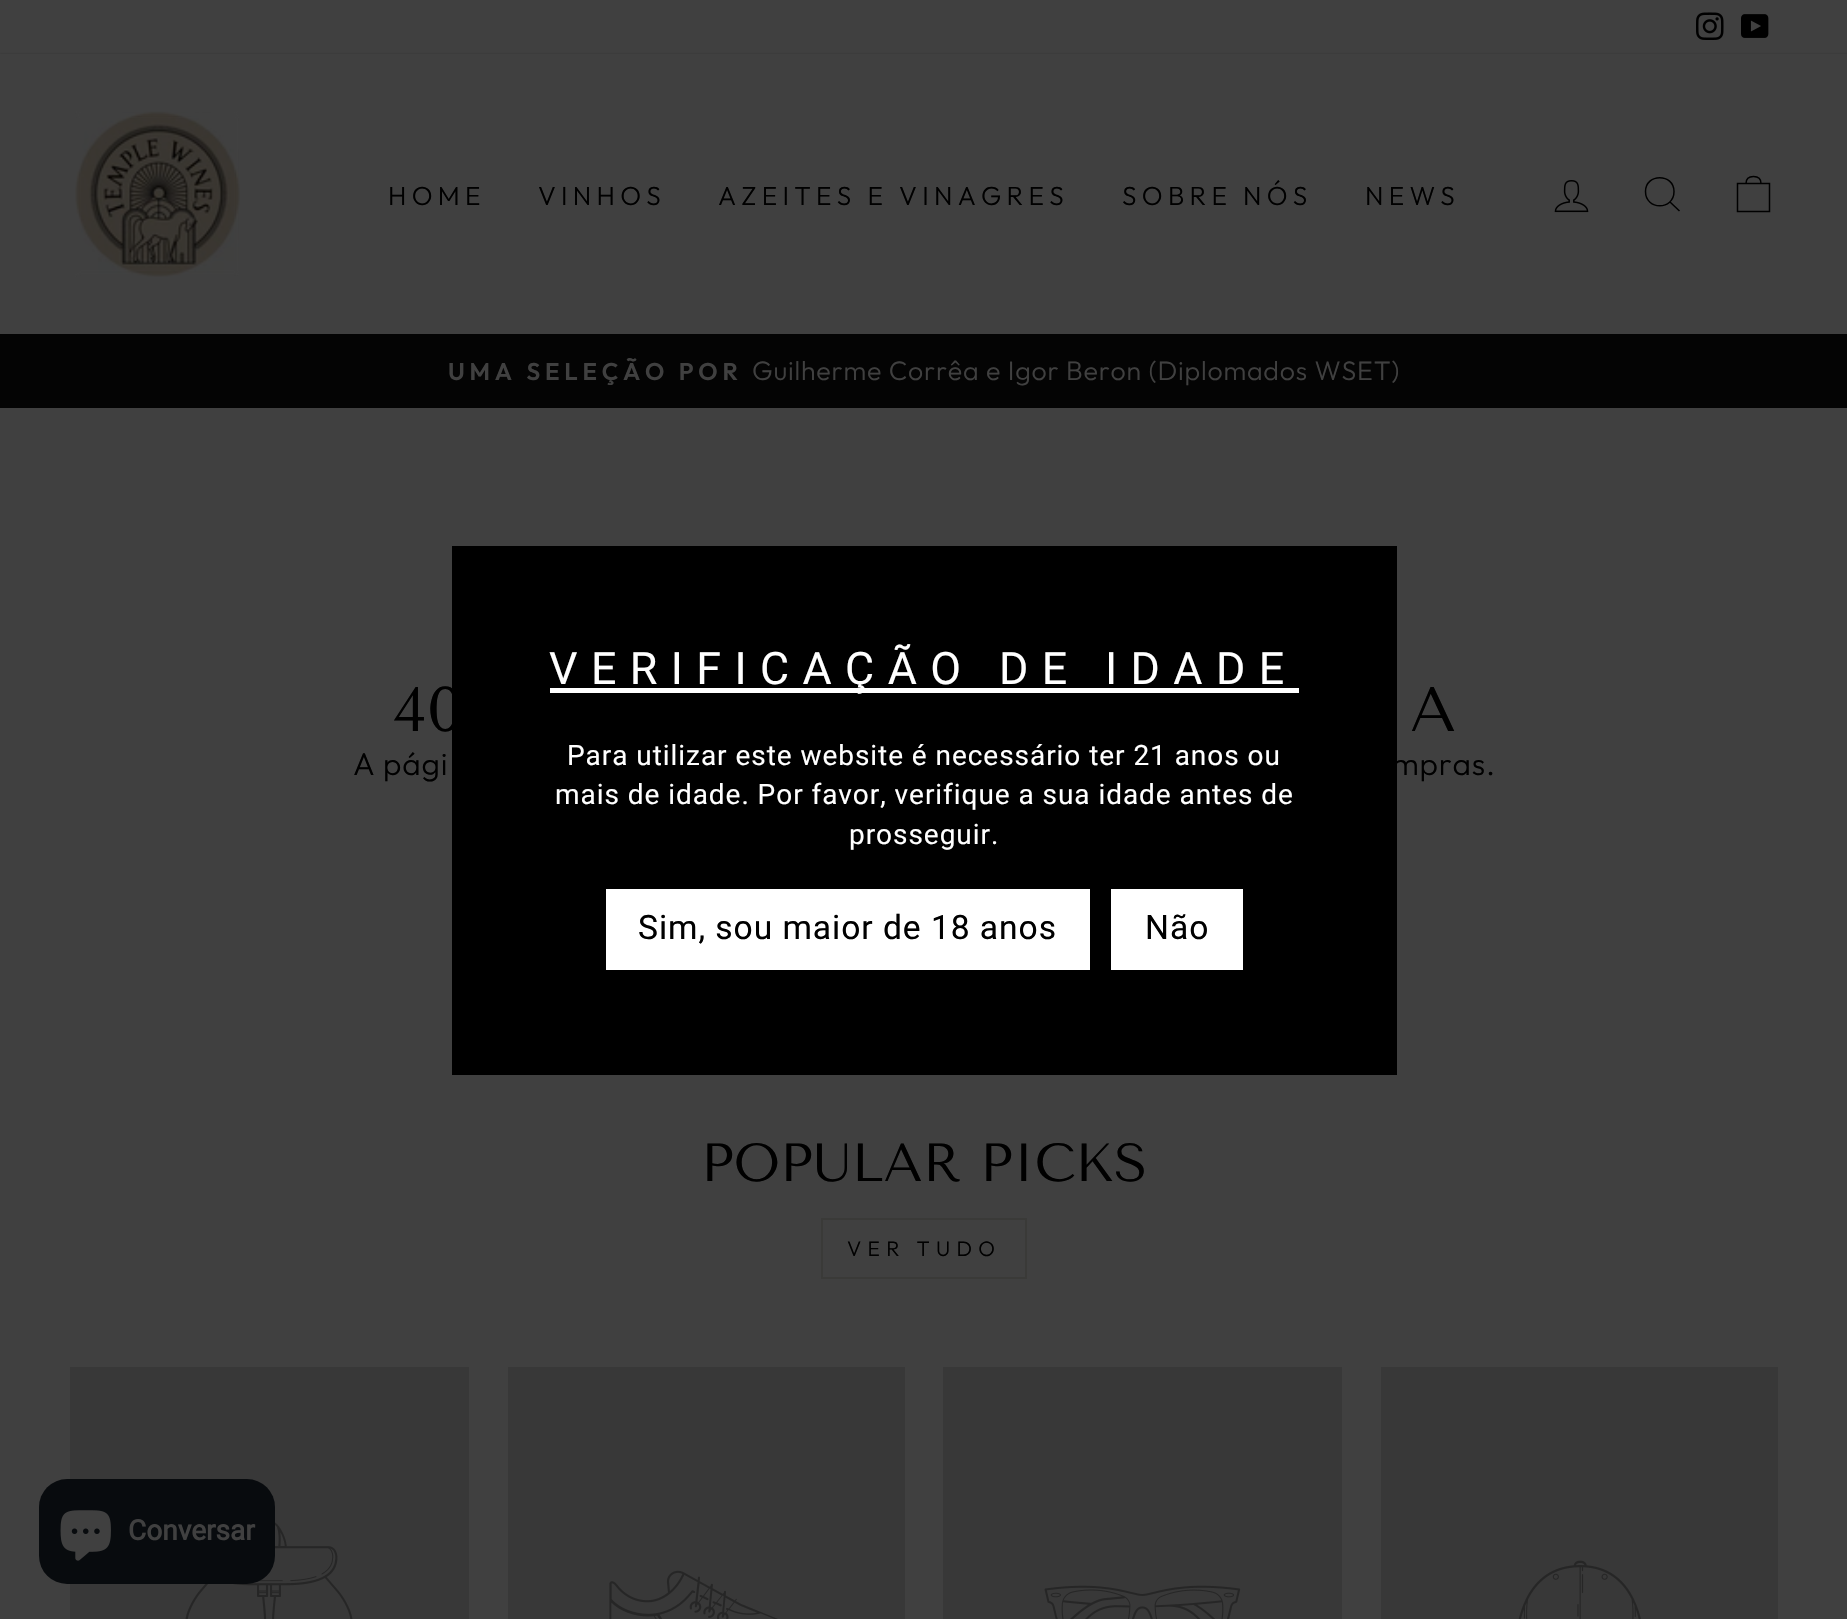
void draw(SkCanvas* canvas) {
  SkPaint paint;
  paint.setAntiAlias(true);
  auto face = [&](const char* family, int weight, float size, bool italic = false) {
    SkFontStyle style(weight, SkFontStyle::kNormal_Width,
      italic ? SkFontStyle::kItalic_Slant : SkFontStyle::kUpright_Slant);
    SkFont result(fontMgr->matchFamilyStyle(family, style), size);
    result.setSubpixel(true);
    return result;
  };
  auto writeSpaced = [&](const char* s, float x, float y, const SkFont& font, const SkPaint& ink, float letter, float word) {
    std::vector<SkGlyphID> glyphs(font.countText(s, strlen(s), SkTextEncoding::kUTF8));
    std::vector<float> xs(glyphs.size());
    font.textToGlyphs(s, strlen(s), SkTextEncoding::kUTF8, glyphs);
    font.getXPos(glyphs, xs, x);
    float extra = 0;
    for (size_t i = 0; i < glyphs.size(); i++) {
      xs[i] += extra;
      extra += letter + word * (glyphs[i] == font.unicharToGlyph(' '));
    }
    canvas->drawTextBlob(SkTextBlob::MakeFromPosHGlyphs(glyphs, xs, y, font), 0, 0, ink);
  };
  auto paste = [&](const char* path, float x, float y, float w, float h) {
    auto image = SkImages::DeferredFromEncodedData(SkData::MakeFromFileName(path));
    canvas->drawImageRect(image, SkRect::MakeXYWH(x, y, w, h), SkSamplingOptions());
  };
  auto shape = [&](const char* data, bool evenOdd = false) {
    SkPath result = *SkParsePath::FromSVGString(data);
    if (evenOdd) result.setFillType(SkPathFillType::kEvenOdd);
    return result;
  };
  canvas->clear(0xff404040);
  paste("img/1.png", 1696, 12, 28, 28);
  paste("img/2.png", 1741, 14, 28, 24);
  paint.setColor(0xff040404);
  canvas->drawRect(SkRect::MakeXYWH(0, 334, 1847, 74), paint);
  paint.setColor(0x33000000);
  paint.setMaskFilter(SkMaskFilter::MakeBlur(kNormal_SkBlurStyle, 1));
  canvas->drawRect(SkRect::MakeXYWH(0, 54, 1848, 280), paint);
  paint.setMaskFilter(nullptr);
  paint.setColor(0xff404040);
  canvas->drawRect(SkRect::MakeXYWH(0, 54, 1847, 280), paint);
  paste("img/3.png", 75, 111, 165, 166);
  paste("img/4.png", 1554, 180, 35, 33);
  paint.setStroke(true);
  paint.setStrokeWidth(1.5f);
  paint.setColor(0xff000000);
  canvas->drawPath(shape("M1674 191.5C1674 210.5 1645.5 210.5 1645.5 191.5C1645.5 173 1674 173 1674 191.5ZM1679.5 211L1670 202"), paint);
  canvas->drawPath(shape("M1737.5 183.5H1769.5V211.5H1737.5ZM1746 183.5C1746 178 1749.5 176.5 1753.5 176.5C1757.5 176.5 1761 178 1761 183.5"), paint);
  paint.setStrokeWidth(2);
  paint.setColor(0xff3a3a38);
  canvas->drawRect(SkRect::MakeXYWH(822, 1219, 204, 59), paint);
  paint.setStroke(false);
  paint.setColor(0xff383838);
  canvas->drawRect(SkRect::MakeXYWH(70, 1367, 399, 252), paint);
  paste("img/5.png", 185, 1522, 168, 97);
  canvas->drawRect(SkRect::MakeXYWH(508, 1367, 397, 252), paint);
  paste("img/6.png", 609, 1570, 169, 49);
  canvas->drawRect(SkRect::MakeXYWH(943, 1367, 399, 252), paint);
  paste("img/7.png", 1044, 1585, 197, 34);
  canvas->drawRect(SkRect::MakeXYWH(1381, 1367, 397, 252), paint);
  paste("img/8.png", 1518, 1560, 123, 59);
  {
    const struct { float x, y, w, h; SkColor color; } items[] = {
      {452, 546, 945, 529, 0xff000000},
      {550, 688, 749, 5, 0xffffffff},
      {606, 889, 484, 81, 0xffffffff},
      {1111, 889, 132, 81, 0xffffffff},
    };
    for (auto [x, y, w, h, color] : items) {
      paint.setColor(color);
      canvas->drawRect(SkRect::MakeXYWH(x, y, w, h), paint);
    }
  }
  paint.setColor(0xff080b0e);
  canvas->drawRoundRect(SkRect::MakeXYWH(39, 1479, 236, 105), 28, 28, paint);
  paste("img/9.png", 60, 1510, 51, 51);
  auto f0 = face("Outfit", 300, 26.25f);
  paint.setColor(0xff000000);
  {
    const struct { const char* s; float x, y; } items[] = {
      {"HOME", 388, 205},
      {"VINHOS", 538, 205},
      {"AZEITES E VINAGRES", 718, 205},
      {"SOBRE NÓS", 1122, 205},
      {"NEWS", 1365, 205},
    };
    for (auto [s, x, y] : items) {
      writeSpaced(s, x, y, f0, paint, 5.25f, 0);
    }
  }
  auto f1 = face("Outfit", 600, 24.1f);
  paint.setColor(0xff404040);
  writeSpaced("UMA SELEÇÃO POR", 448, 380, f1, paint, 4.8f, 0);
  auto f2 = face("Outfit", 300, 26.75f);
  writeSpaced("Guilherme Corrêa e Igor Beron (Diplomados WSET)", 752, 380, f2, paint, 0.8f, 0);
  auto f3 = face("Tenor Sans", 400, 63);
  paint.setColor(0xff000000);
  canvas->drawString("40", 392, 731, f3, paint);
  canvas->drawString("A", 1410, 731, f3, paint);
  auto f4 = face("Outfit", 300, 31.5f);
  writeSpaced("A pági", 353, 775, f4, paint, 0.8f, 0);
  writeSpaced("mpras.", 1392, 775, f4, paint, 0.8f, 0);
  auto f5 = face("Tenor Sans", 400, 53.5f);
  canvas->drawString("POPULAR PICKS", 701, 1181, f5, paint);
  auto f6 = face("Outfit", 300, 21);
  writeSpaced("VER TUDO", 847, 1256, f6, paint, 6.25f, 0);
  auto f7 = face("Roboto", 400, 44.75f);
  paint.setColor(0xffffffff);
  writeSpaced("VERIFICAÇÃO DE IDADE", 549, 684, f7, paint, 13.4f, 0);
  auto f8 = face("Roboto", 400, 28);
  {
    const struct { const char* s; float x, y; } items[] = {
      {"Para utilizar este website é necessário ter 21 anos ou", 567, 765},
      {"mais de idade. Por favor, verifique a sua idade antes de", 555, 804},
      {"prosseguir.", 849, 844},
    };
    for (auto [s, x, y] : items) {
      writeSpaced(s, x, y, f8, paint, 0.95f, 0);
    }
  }
  auto f9 = face("Roboto", 400, 33.6f);
  paint.setColor(0xff000000);
  writeSpaced("Sim, sou maior de 18 anos", 638, 939, f9, paint, 0.95f, 0);
  writeSpaced("Não", 1145, 939, f9, paint, 0.95f, 0);
  auto f10 = face("Roboto", 700, 28);
  paint.setColor(0xff404040);
  canvas->drawString("Conversar", 128, 1540, f10, paint);
}
